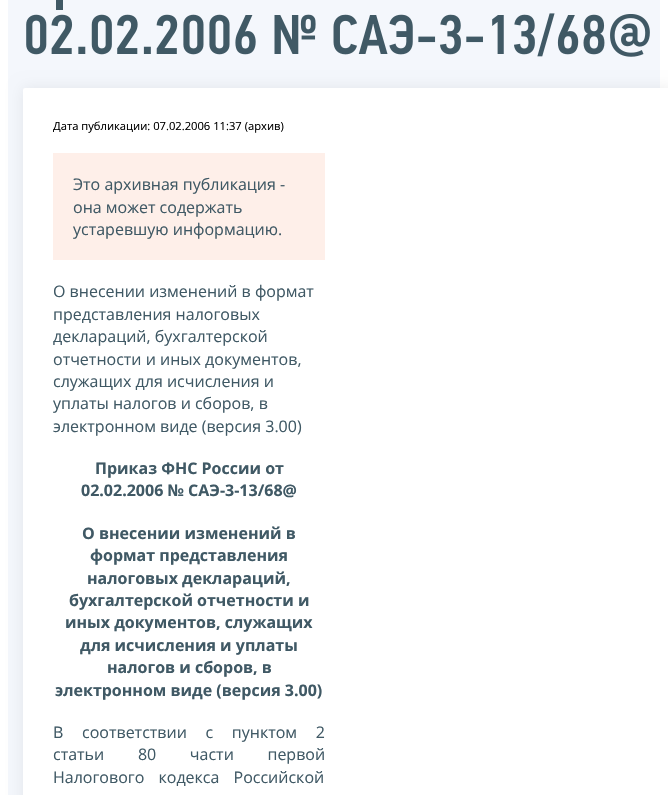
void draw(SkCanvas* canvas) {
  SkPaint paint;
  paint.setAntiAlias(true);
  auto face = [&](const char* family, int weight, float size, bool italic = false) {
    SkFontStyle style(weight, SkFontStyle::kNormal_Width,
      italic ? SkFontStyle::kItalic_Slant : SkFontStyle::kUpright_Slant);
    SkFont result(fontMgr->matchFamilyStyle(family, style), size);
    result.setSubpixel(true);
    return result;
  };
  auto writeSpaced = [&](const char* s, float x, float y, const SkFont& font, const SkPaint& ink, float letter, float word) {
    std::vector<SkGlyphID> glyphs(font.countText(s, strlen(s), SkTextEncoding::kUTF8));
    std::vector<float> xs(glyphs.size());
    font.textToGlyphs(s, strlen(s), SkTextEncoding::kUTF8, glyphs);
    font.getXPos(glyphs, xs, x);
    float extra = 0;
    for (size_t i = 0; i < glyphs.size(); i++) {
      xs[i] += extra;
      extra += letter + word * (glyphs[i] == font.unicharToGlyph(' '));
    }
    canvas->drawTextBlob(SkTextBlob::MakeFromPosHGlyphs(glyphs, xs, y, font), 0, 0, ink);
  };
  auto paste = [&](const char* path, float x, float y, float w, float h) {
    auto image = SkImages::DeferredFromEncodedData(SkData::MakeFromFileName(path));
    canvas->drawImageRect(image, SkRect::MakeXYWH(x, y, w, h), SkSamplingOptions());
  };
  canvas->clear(0xffffffff);
  paint.setColor(0xfff4f7fc);
  canvas->drawRect(SkRect::MakeXYWH(8, 0, 652, 795), paint);
  paint.setColor(0xff405965);
  canvas->drawRect(SkRect::MakeXYWH(56, 0, 7, 10), paint);
  paste("img/1.png", 26, 13, 624, 44);
  paint.setColor(0x12000000);
  paint.setMaskFilter(SkMaskFilter::MakeBlur(kNormal_SkBlurStyle, 7.5f));
  canvas->drawRoundRect(SkRect::MakeXYWH(23, 88, 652, 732), 2, 2, paint);
  paint.setMaskFilter(nullptr);
  paint.setColor(0xffffffff);
  canvas->drawRoundRect(SkRect::MakeXYWH(23, 88, 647, 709), 2, 2, paint);
  paint.setColor(0xfffeefe9);
  canvas->drawRect(SkRect::MakeXYWH(53, 153, 272, 107), paint);
  auto f0 = face("Open Sans", 400, 11.2f);
  paint.setColor(0xff000000);
  canvas->drawString("Дата публикации: 07.02.2006 11:37 (архив)", 53, 130, f0, paint);
  auto f1 = face("Open Sans", 400, 16);
  paint.setColor(0xff405965);
  {
    const struct { const char* s; float x, y; } items[] = {
      {"Это архивная публикация -", 73, 190},
      {"она может содержать", 73, 213},
      {"устаревшую информацию.", 73, 235},
      {"О внесении изменений в формат", 53, 297},
      {"представления налоговых", 53, 320},
      {"деклараций, бухгалтерской", 53, 342},
      {"отчетности и иных документов,", 53, 365},
      {"служащих для исчисления и", 53, 387},
      {"уплаты налогов и сборов, в", 53, 409},
      {"электронном виде (версия 3.00)", 53, 432},
    };
    for (auto [s, x, y] : items) {
      canvas->drawString(s, x, y, f1, paint);
    }
  }
  auto f2 = face("Open Sans", 700, 16);
  {
    const struct { const char* s; float x, y; } items[] = {
      {"Приказ ФНС России от", 95, 474},
      {"02.02.2006 № САЭ-3-13/68@", 81, 496},
      {"О внесении изменений в", 82, 539},
      {"формат представления", 90, 561},
      {"налоговых деклараций,", 87, 584},
      {"бухгалтерской отчетности и", 69, 606},
      {"иных документов, служащих", 65, 628},
      {"для исчисления и уплаты", 80, 651},
      {"налогов и сборов, в", 107, 673},
      {"электронном виде (версия 3.00)", 55, 696},
    };
    for (auto [s, x, y] : items) {
      canvas->drawString(s, x, y, f2, paint);
    }
  }
  writeSpaced("В соответствии с пунктом 2", 53, 738, f1, paint, 0, 14.5f);
  writeSpaced("статьи 80 части первой", 53, 760, f1, paint, 0, 29.5f);
  writeSpaced("Налогового кодекса Российской", 53, 783, f1, paint, 0, 10);
}
